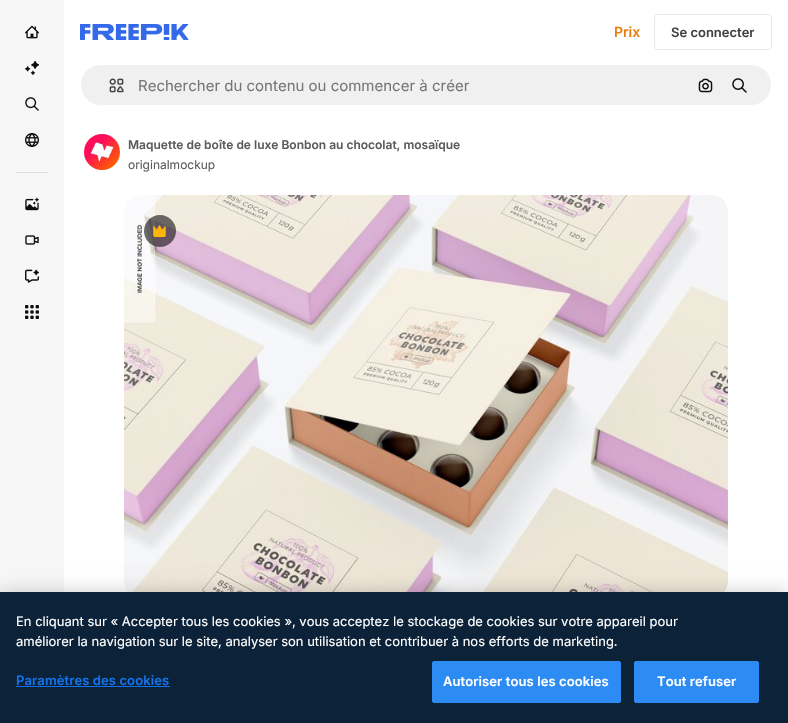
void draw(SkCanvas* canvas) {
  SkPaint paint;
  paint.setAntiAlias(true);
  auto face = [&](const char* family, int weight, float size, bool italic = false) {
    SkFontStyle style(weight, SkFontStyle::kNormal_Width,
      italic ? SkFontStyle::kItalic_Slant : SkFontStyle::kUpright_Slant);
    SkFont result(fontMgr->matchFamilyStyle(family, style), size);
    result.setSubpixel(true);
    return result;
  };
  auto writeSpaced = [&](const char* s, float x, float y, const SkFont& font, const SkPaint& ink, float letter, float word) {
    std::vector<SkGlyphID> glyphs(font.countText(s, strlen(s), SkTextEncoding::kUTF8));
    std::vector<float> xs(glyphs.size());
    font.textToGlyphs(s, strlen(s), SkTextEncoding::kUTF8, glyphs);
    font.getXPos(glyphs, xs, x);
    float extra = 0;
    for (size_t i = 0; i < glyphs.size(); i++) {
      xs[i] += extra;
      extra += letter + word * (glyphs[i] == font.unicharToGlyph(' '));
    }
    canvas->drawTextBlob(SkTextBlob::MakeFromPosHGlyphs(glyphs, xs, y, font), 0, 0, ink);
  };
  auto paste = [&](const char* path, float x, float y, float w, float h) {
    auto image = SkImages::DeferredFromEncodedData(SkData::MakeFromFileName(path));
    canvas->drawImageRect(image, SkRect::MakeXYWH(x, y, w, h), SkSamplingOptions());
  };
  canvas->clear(0xffffffff);
  paint.setColor(0xfff7f7f7);
  canvas->drawRect(SkRect::MakeXYWH(0, 0, 64, 592), paint);
  paste("img/1.png", 25, 25, 14, 14);
  paste("img/2.png", 25, 61, 14, 14);
  paste("img/3.png", 25, 97, 14, 14);
  paste("img/4.png", 25, 133, 14, 14);
  paint.setColor(0xffe0e0e0);
  canvas->drawRect(SkRect::MakeXYWH(16, 172, 32, 1), paint);
  paste("img/5.png", 25, 197, 14, 14);
  paste("img/6.png", 25, 235, 14, 10);
  paste("img/7.png", 25, 269, 14, 14);
  paste("img/8.png", 25, 305, 14, 14);
  paste("img/9.png", 80, 24, 109, 16);
  paint.setStroke(true);
  paint.setStrokeWidth(1);
  paint.setColor(0xffe7e7e7);
  canvas->drawRoundRect(SkRect::MakeXYWH(654.5f, 14.5f, 117, 35), 3.5f, 3.5f, paint);
  paint.setStroke(false);
  paint.setColor(0xfff0f0f0);
  canvas->drawRoundRect(SkRect::MakeXYWH(80.5f, 64.5f, 691, 41), 20.5f, 20.5f, paint);
  paint.setStroke(true);
  paint.setColor(0xffffffff);
  canvas->drawRoundRect(SkRect::MakeXYWH(80.5f, 64.5f, 691, 41), 20.5f, 20.5f, paint);
  paste("img/10.png", 109, 78, 15, 15);
  paste("img/11.png", 698, 78, 15, 15);
  paste("img/12.png", 732, 78, 15, 15);
  paste("img/13.png", 84, 134, 36, 36);
  paste("img/14.png", 124, 195, 604, 397);
  paint.setStroke(false);
  paint.setColor(0x990d0d0d);
  canvas->drawCircle(160, 231, 16, paint);
  paste("img/15.png", 153, 225, 13, 12);
  paint.setColor(0x33000000);
  paint.setMaskFilter(SkMaskFilter::MakeBlur(kNormal_SkBlurStyle, 9));
  canvas->drawRect(SkRect::MakeXYWH(0, 592, 788, 131), paint);
  paint.setMaskFilter(nullptr);
  paint.setColor(0xff0b2239);
  canvas->drawRect(SkRect::MakeXYWH(0, 592, 788, 131), paint);
  paint.setColor(0xff1273eb);
  canvas->drawRect(SkRect::MakeXYWH(16, 686, 154, 1), paint);
  paint.setColor(0xff2c8cf4);
  canvas->drawRoundRect(SkRect::MakeXYWH(432.5f, 661.5f, 188, 41), 1.5f, 1.5f, paint);
  paint.setStroke(true);
  canvas->drawRoundRect(SkRect::MakeXYWH(432.5f, 661.5f, 188, 41), 1.5f, 1.5f, paint);
  paint.setStroke(false);
  canvas->drawRoundRect(SkRect::MakeXYWH(634.5f, 661.5f, 124, 41), 1.5f, 1.5f, paint);
  paint.setStroke(true);
  canvas->drawRoundRect(SkRect::MakeXYWH(634.5f, 661.5f, 124, 41), 1.5f, 1.5f, paint);
  auto f0 = face("Inter", 600, 14);
  paint.setStroke(false);
  paint.setColor(0xffea7e11);
  canvas->drawString("Prix", 614, 37, f0, paint);
  auto f1 = face("Inter", 600, 13);
  paint.setColor(0xff424242);
  canvas->drawString("Se connecter", 671, 37, f1, paint);
  auto f2 = face("Inter", 400, 15);
  paint.setColor(0xff777777);
  canvas->drawString("Rechercher du contenu ou commencer à créer", 138, 91, f2, paint);
  auto f3 = face("Inter", 600, 12);
  paint.setColor(0xff5c5c5c);
  canvas->drawString("Maquette de boîte de luxe Bonbon au chocolat, mosaïque", 128, 149, f3, paint);
  auto f4 = face("Inter", 400, 12);
  canvas->drawString("originalmockup", 128, 169, f4, paint);
  auto f5 = face("Inter", 400, 13);
  paint.setColor(0xffffffff);
  canvas->drawString("En cliquant sur « Accepter tous les cookies », vous acceptez le stockage de cookies sur votre appareil pour", 16, 626, f5, paint);
  canvas->drawString("améliorer la navigation sur le site, analyser son utilisation et contribuer à nos efforts de marketing.", 16, 646, f5, paint);
  paint.setColor(0xff1273eb);
  writeSpaced("Paramètres des cookies", 16, 685, f1, paint, 0.1f, 0);
  paint.setColor(0xffffffff);
  writeSpaced("Autoriser tous les cookies", 443, 686, f1, paint, 0.1f, 0);
  writeSpaced("Tout refuser", 657, 686, f1, paint, 0.1f, 0);
}
